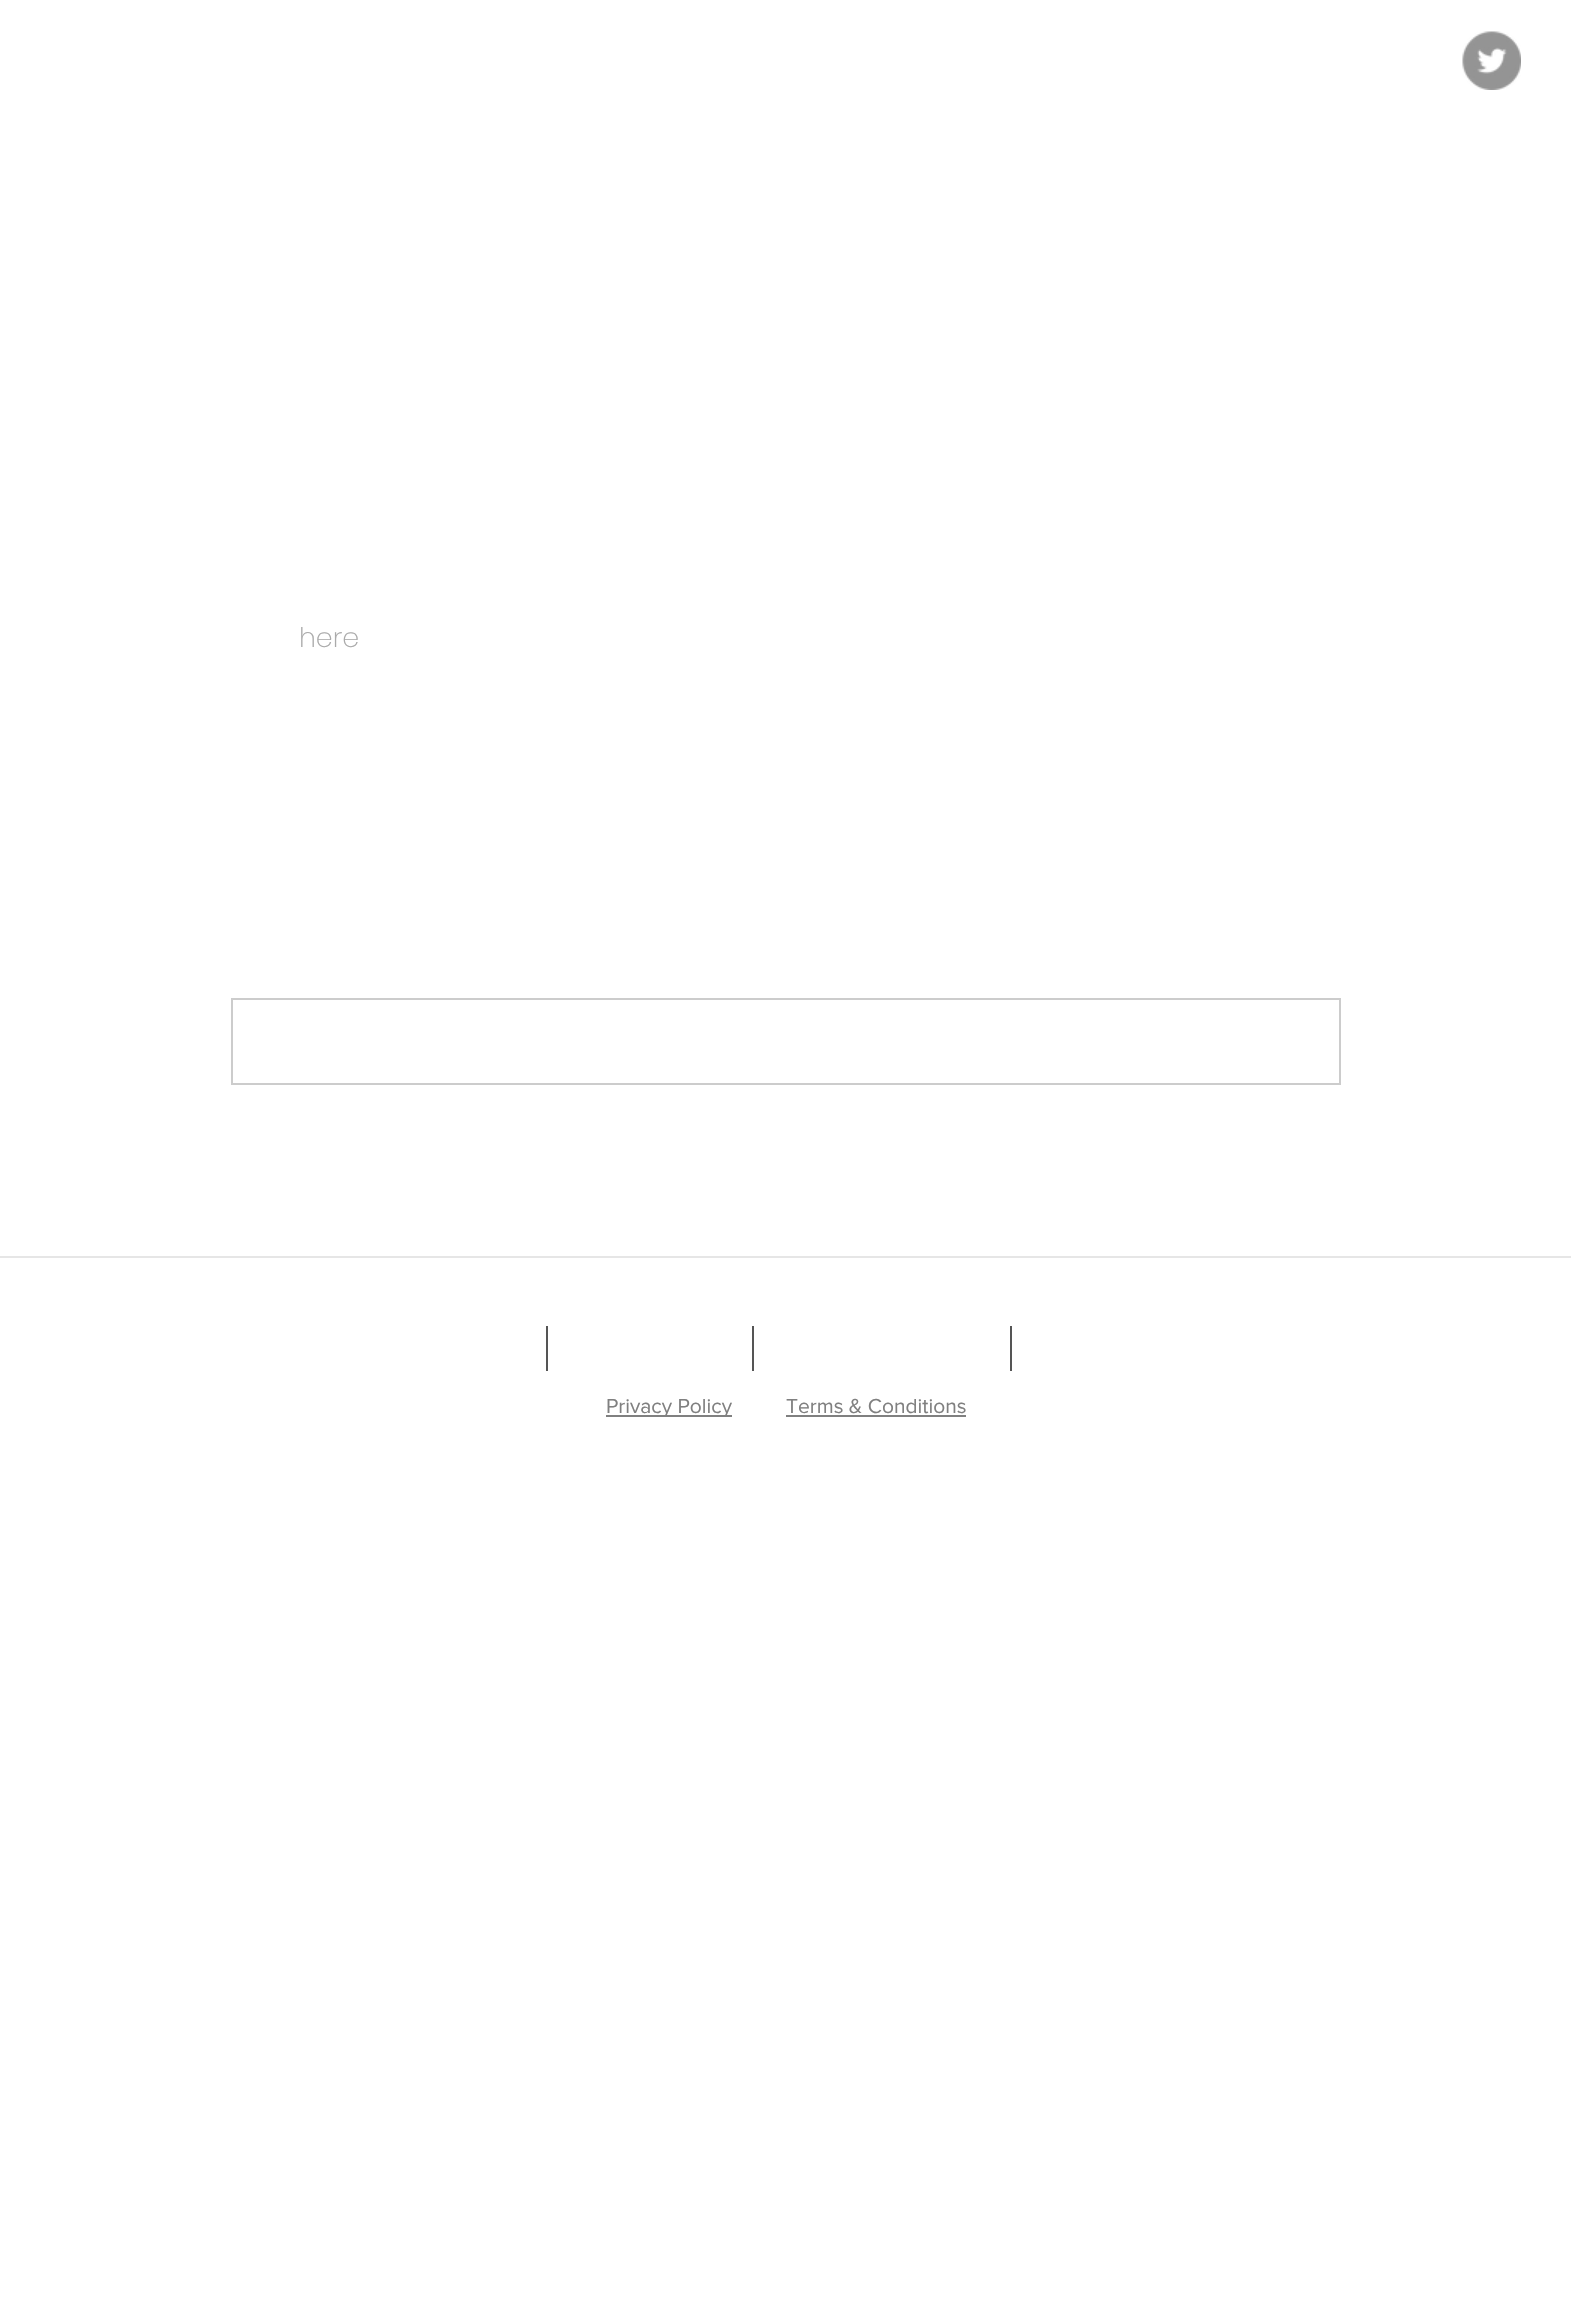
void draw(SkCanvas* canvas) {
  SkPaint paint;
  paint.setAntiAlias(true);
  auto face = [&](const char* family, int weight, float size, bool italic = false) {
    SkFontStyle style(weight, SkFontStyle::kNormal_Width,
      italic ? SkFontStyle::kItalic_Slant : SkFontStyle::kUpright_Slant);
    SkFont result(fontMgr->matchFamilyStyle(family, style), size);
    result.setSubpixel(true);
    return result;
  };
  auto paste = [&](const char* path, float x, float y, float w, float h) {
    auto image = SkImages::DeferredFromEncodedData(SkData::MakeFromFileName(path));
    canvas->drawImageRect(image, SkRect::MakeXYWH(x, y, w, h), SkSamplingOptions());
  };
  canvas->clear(0xffffffff);
  paste("img/1.png", 1462, 31, 59, 59);
  paint.setStroke(true);
  paint.setStrokeWidth(2);
  paint.setColor(0xffcccccc);
  canvas->drawRect(SkRect::MakeXYWH(232, 999, 1108, 85), paint);
  paint.setStroke(false);
  {
    const struct { float x, y, w, h; SkColor color; } items[] = {
      {0, 1256, 1571, 2, 0xffe6e6e6},
      {546, 1326, 2, 45, 0xff555555},
      {752, 1326, 2, 45, 0xff555555},
      {1010, 1326, 2, 45, 0xff555555},
      {606, 1415, 126, 2, 0xff808080},
      {786, 1415, 180, 2, 0xff808080},
    };
    for (auto [x, y, w, h, color] : items) {
      paint.setColor(color);
      canvas->drawRect(SkRect::MakeXYWH(x, y, w, h), paint);
    }
  }
  auto f0 = face("Poppins", 200, 27);
  paint.setColor(0xffaaaaaa);
  canvas->drawString("here", 299, 647, f0, paint);
  auto f1 = face("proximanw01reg", 400, 21);
  paint.setColor(0xff808080);
  canvas->drawString("Privacy Policy", 606, 1413, f1, paint);
  canvas->drawString("Terms & Conditions", 786, 1413, f1, paint);
}
